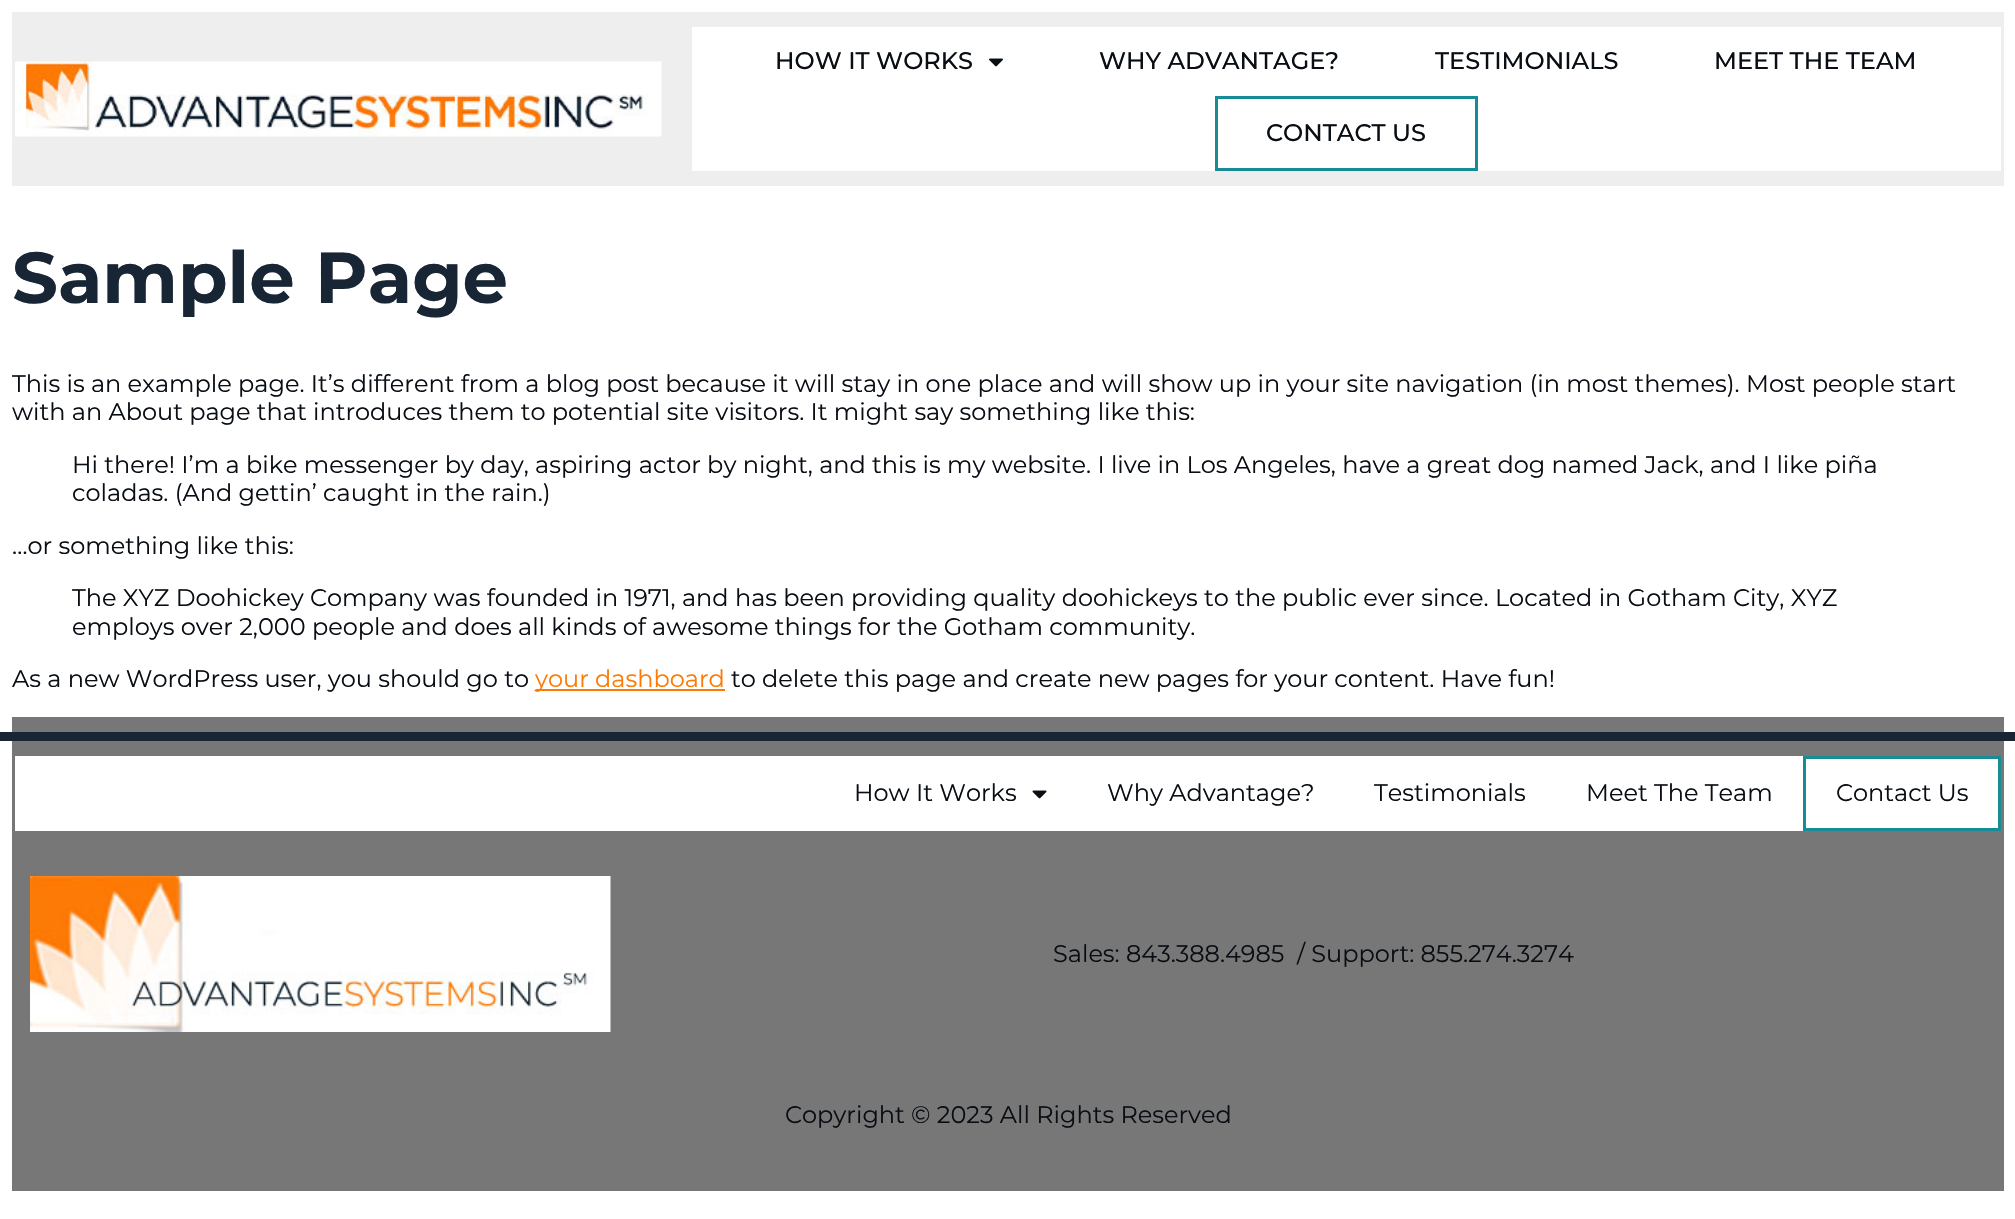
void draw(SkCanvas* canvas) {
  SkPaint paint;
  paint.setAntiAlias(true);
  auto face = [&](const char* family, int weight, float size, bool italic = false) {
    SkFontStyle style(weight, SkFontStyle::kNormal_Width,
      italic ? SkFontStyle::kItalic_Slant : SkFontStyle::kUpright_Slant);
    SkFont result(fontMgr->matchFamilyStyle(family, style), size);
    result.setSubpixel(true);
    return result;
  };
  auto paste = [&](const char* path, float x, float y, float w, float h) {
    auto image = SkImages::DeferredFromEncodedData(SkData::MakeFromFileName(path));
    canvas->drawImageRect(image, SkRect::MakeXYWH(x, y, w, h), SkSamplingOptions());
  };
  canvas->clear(0xffffffff);
  paint.setColor(0xffeeeeee);
  canvas->drawRect(SkRect::MakeXYWH(12, 12, 1992, 174), paint);
  paste("img/1.png", 15, 61, 647, 76);
  paint.setColor(0xffffffff);
  canvas->drawRect(SkRect::MakeXYWH(692, 27, 1309, 144), paint);
  paste("img/2.png", 989, 58, 14, 9);
  paint.setStroke(true);
  paint.setStrokeWidth(3);
  paint.setColor(0xff178c96);
  canvas->drawRect(SkRect::MakeXYWH(1216.5f, 97.5f, 260, 72), paint);
  paint.setStroke(false);
  {
    const struct { float x, y, w, h; SkColor color; } items[] = {
      {536, 689, 189, 2, 0xfffd7a04},
      {12, 717, 1992, 474, 0xff777777},
      {0, 732, 2015, 9, 0xff182534},
      {15, 756, 1983, 75, 0xffffffff},
    };
    for (auto [x, y, w, h, color] : items) {
      paint.setColor(color);
      canvas->drawRect(SkRect::MakeXYWH(x, y, w, h), paint);
    }
  }
  paste("img/3.png", 1032, 790, 15, 9);
  paint.setStroke(true);
  paint.setColor(0xff178c96);
  canvas->drawRect(SkRect::MakeXYWH(1804.5f, 757.5f, 195, 72), paint);
  paste("img/4.png", 30, 876, 581, 156);
  auto f0 = face("Montserrat", 500, 24);
  paint.setStroke(false);
  paint.setColor(0xff090e14);
  {
    const struct { const char* s; float x, y; } items[] = {
      {"HOW IT WORKS", 775, 69},
      {"WHY ADVANTAGE?", 1099, 69},
      {"TESTIMONIALS", 1435, 69},
      {"MEET THE TEAM", 1714, 69},
      {"CONTACT US", 1266, 141},
    };
    for (auto [s, x, y] : items) {
      canvas->drawString(s, x, y, f0, paint);
    }
  }
  auto f1 = face("Montserrat", 700, 72);
  paint.setColor(0xff182534);
  canvas->drawString("Sample Page", 12, 303, f1, paint);
  auto f2 = face("Montserrat", 400, 24);
  paint.setColor(0xff090e14);
  {
    const struct { const char* s; float x, y; } items[] = {
      {"This is an example page. It’s different from a blog post because it will stay in one place and will show up in your site navigation (in most themes). Most people start", 12, 392},
      {"with an About page that introduces them to potential site visitors. It might say something like this:", 12, 420},
      {"Hi there! I’m a bike messenger by day, aspiring actor by night, and this is my website. I live in Los Angeles, have a great dog named Jack, and I like piña", 72, 473},
      {"coladas. (And gettin’ caught in the rain.)", 72, 501},
      {"…or something like this:", 12, 554},
      {"The XYZ Doohickey Company was founded in 1971, and has been providing quality doohickeys to the public ever since. Located in Gotham City, XYZ", 72, 606},
      {"employs over 2,000 people and does all kinds of awesome things for the Gotham community.", 72, 635},
      {"As a new WordPress user, you should go to", 12, 687},
    };
    for (auto [s, x, y] : items) {
      canvas->drawString(s, x, y, f2, paint);
    }
  }
  paint.setColor(0xfffd7a04);
  canvas->drawString("your dashboard", 535, 687, f2, paint);
  paint.setColor(0xff090e14);
  {
    const struct { const char* s; float x, y; } items[] = {
      {"to delete this page and create new pages for your content. Have fun!", 731, 687},
      {"How It Works", 854, 801},
      {"Why Advantage?", 1107, 801},
      {"Testimonials", 1374, 801},
      {"Meet The Team", 1586, 801},
      {"Contact Us", 1836, 801},
      {"Sales: 843.388.4985  / Support: 855.274.3274", 1053, 962},
      {"Copyright © 2023 All Rights Reserved", 785, 1123},
    };
    for (auto [s, x, y] : items) {
      canvas->drawString(s, x, y, f2, paint);
    }
  }
}
